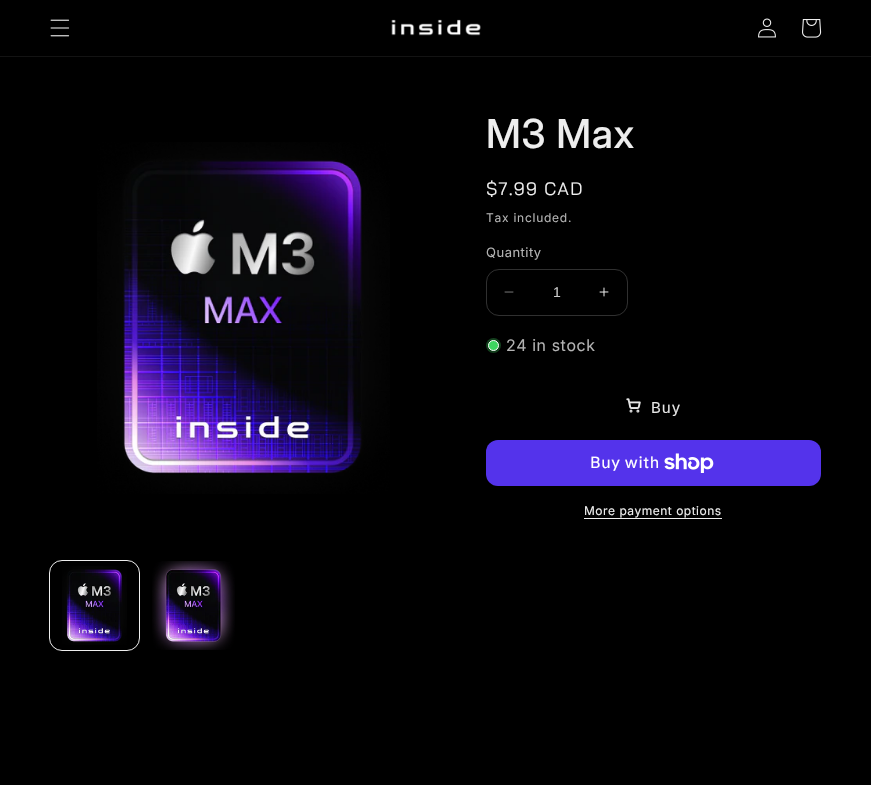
void draw(SkCanvas* canvas) {
  SkPaint paint;
  paint.setAntiAlias(true);
  auto face = [&](const char* family, int weight, float size, bool italic = false) {
    SkFontStyle style(weight, SkFontStyle::kNormal_Width,
      italic ? SkFontStyle::kItalic_Slant : SkFontStyle::kUpright_Slant);
    SkFont result(fontMgr->matchFamilyStyle(family, style), size);
    result.setSubpixel(true);
    return result;
  };
  auto writeSpaced = [&](const char* s, float x, float y, const SkFont& font, const SkPaint& ink, float letter, float word) {
    std::vector<SkGlyphID> glyphs(font.countText(s, strlen(s), SkTextEncoding::kUTF8));
    std::vector<float> xs(glyphs.size());
    font.textToGlyphs(s, strlen(s), SkTextEncoding::kUTF8, glyphs);
    font.getXPos(glyphs, xs, x);
    float extra = 0;
    for (size_t i = 0; i < glyphs.size(); i++) {
      xs[i] += extra;
      extra += letter + word * (glyphs[i] == font.unicharToGlyph(' '));
    }
    canvas->drawTextBlob(SkTextBlob::MakeFromPosHGlyphs(glyphs, xs, y, font), 0, 0, ink);
  };
  auto paste = [&](const char* path, float x, float y, float w, float h) {
    auto image = SkImages::DeferredFromEncodedData(SkData::MakeFromFileName(path));
    canvas->drawImageRect(image, SkRect::MakeXYWH(x, y, w, h), SkSamplingOptions());
  };
  canvas->clear(0xff000000);
  paint.setColor(0xff131313);
  canvas->drawRect(SkRect::MakeXYWH(0, 56, 871, 1), paint);
  paste("img/1.png", 50, 19, 20, 18);
  paste("img/2.png", 391, 19, 90, 17);
  paste("img/3.png", 758, 18, 18, 20);
  paste("img/4.png", 802, 19, 20, 19);
  paste("img/5.png", 97, 142, 293, 352);
  paint.setStroke(true);
  paint.setStrokeWidth(1);
  paint.setColor(0xffeeeeee);
  canvas->drawRoundRect(SkRect::MakeXYWH(49.5f, 560.5f, 90, 90), 12.5f, 12.5f, paint);
  paste("img/6.png", 62, 566, 65, 79);
  paste("img/7.png", 152, 561, 83, 89);
  paste("img/8.png", 504, 291, 10, 2);
  paste("img/9.png", 599, 287, 10, 10);
  paint.setColor(0xff303030);
  canvas->drawRoundRect(SkRect::MakeXYWH(486.5f, 269.5f, 141, 46), 12.5f, 12.5f, paint);
  paint.setStroke(false);
  paint.setColor(0xff13401d);
  canvas->drawCircle(493.5f, 345.5f, 7.5f, paint);
  paint.setColor(0xff3ed660);
  canvas->drawCircle(493.5f, 345.5f, 5, paint);
  paint.setStroke(true);
  paint.setColor(0xffffffff);
  canvas->drawCircle(493.5f, 345.5f, 5, paint);
  paste("img/10.png", 626, 398, 15, 15);
  paint.setStroke(false);
  paint.setColor(0xff5433eb);
  canvas->drawRoundRect(SkRect::MakeXYWH(486, 440, 335, 46), 12, 12, paint);
  paste("img/11.png", 664, 453, 50, 20);
  paint.setColor(0xffeeeeee);
  canvas->drawRect(SkRect::MakeXYWH(584, 518, 138, 1), paint);
  auto f0 = face("Inter", 500, 40);
  writeSpaced("M3 Max", 486, 148, f0, paint, 0.6f, 0);
  auto f1 = face("Bai Jamjuree", 400, 18);
  writeSpaced("$7.99 CAD", 486, 195, f1, paint, 1.25f, 0);
  auto f2 = face("Inter", 400, 12);
  paint.setColor(0xffb3b3b3);
  writeSpaced("Tax included.", 486, 222, f2, paint, 0.75f, 0);
  auto f3 = face("Inter", 400, 13);
  writeSpaced("Quantity", 486, 257, f3, paint, 0.5f, 0);
  auto f4 = face("Liberation Sans", 400, 14);
  paint.setColor(0xffcacaca);
  canvas->drawString("1", 553, 297, f4, paint);
  auto f5 = face("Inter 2", 400, 16);
  paint.setColor(0xffb3b3b3);
  writeSpaced("24 in stock", 506, 351, f5, paint, 0.6f, 0);
  auto f6 = face("Inter", 400, 15);
  paint.setColor(0xffe5e5e5);
  writeSpaced("Buy", 651, 413, f6, paint, 1, 0);
  auto f7 = face("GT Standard", 400, 16);
  paint.setColor(0xffffffff);
  writeSpaced("Buy with", 590, 468, f7, paint, 0.6f, 0);
  paint.setColor(0xffeeeeee);
  writeSpaced("More payment options", 584, 515, f2, paint, 0.5f, 0);
}
